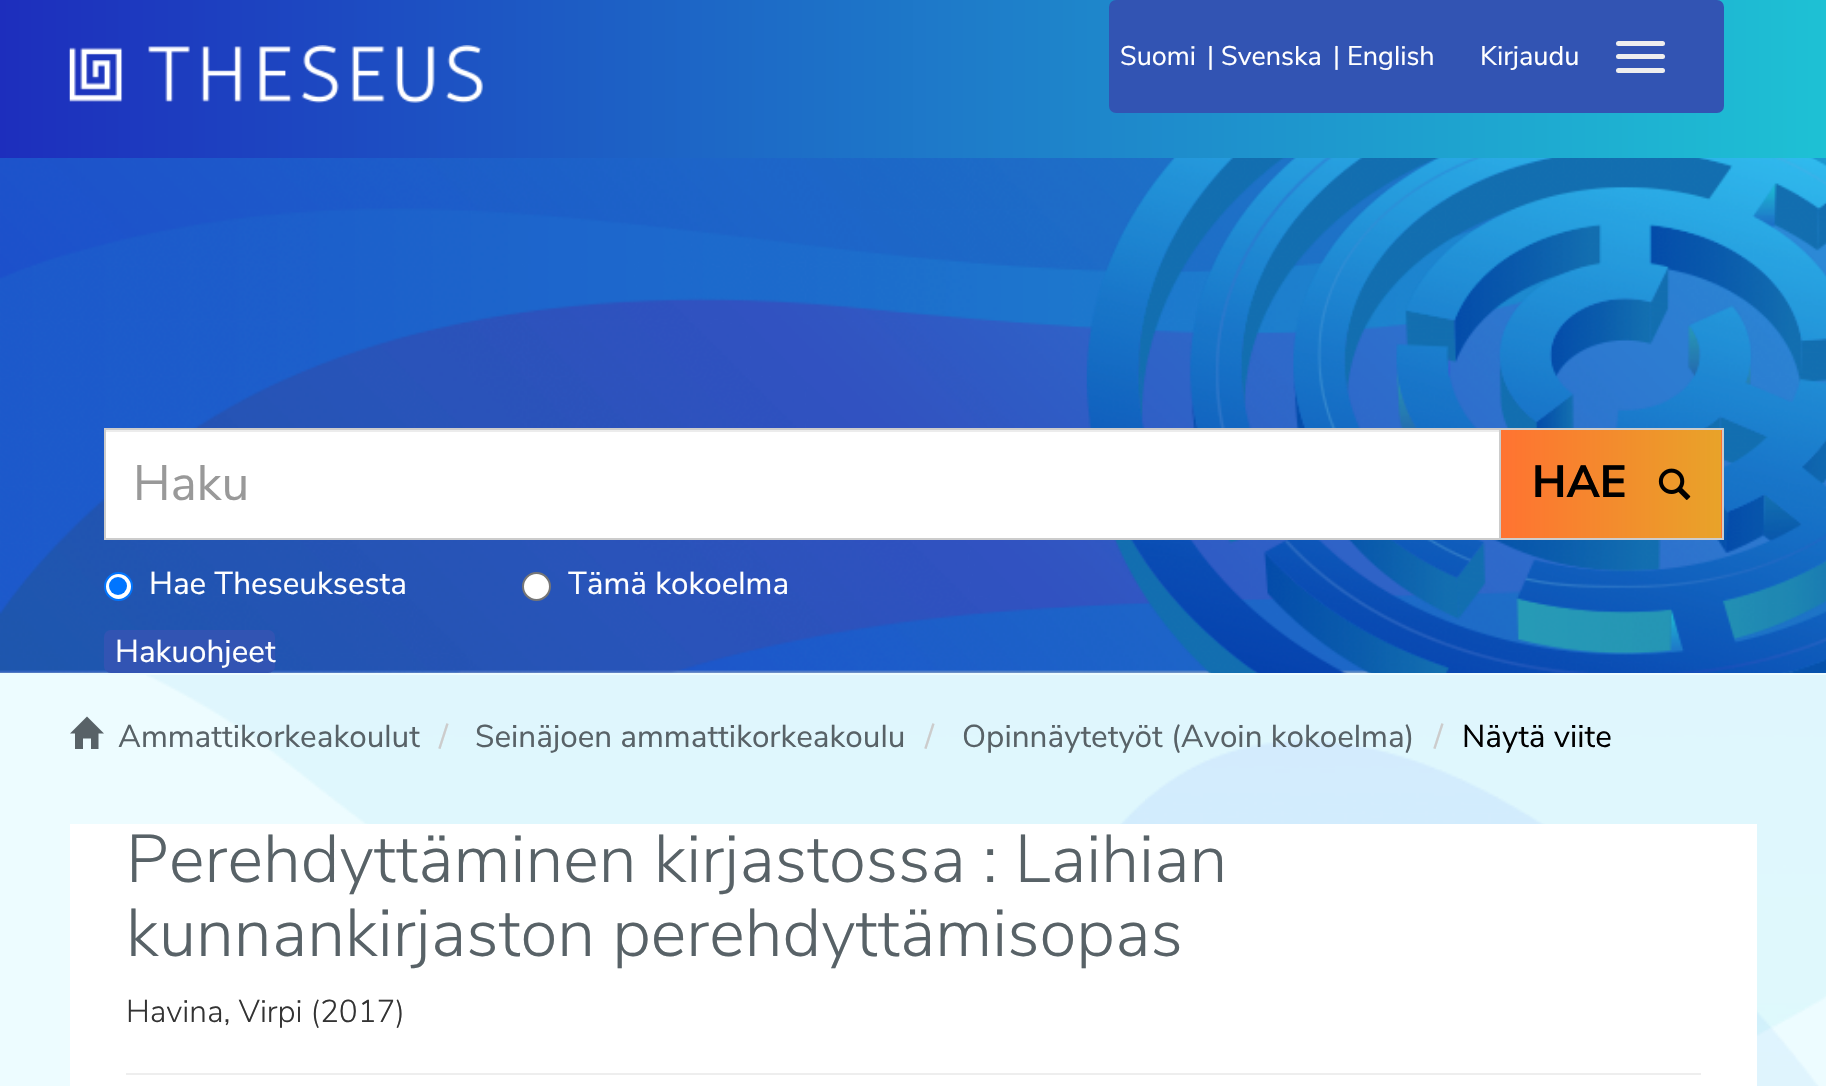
void draw(SkCanvas* canvas) {
  SkPaint paint;
  paint.setAntiAlias(true);
  auto face = [&](const char* family, int weight, float size, bool italic = false) {
    SkFontStyle style(weight, SkFontStyle::kNormal_Width,
      italic ? SkFontStyle::kItalic_Slant : SkFontStyle::kUpright_Slant);
    SkFont result(fontMgr->matchFamilyStyle(family, style), size);
    result.setSubpixel(true);
    return result;
  };
  auto paste = [&](const char* path, float x, float y, float w, float h) {
    auto image = SkImages::DeferredFromEncodedData(SkData::MakeFromFileName(path));
    canvas->drawImageRect(image, SkRect::MakeXYWH(x, y, w, h), SkSamplingOptions());
  };
  auto shape = [&](const char* data, bool evenOdd = false) {
    SkPath result = *SkParsePath::FromSVGString(data);
    if (evenOdd) result.setFillType(SkPathFillType::kEvenOdd);
    return result;
  };
  canvas->clear(0xffedfcff);
  paste("img/1.png", 146, 675, 1680, 411);
  {
    const SkColor colors[] = {0xff1d2ebd, 0xff1ec1d4};
    const float stops[] = {0, 1};
    const SkPoint ends[] = {{0, 79}, {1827, 79}};
    paint.setShader(SkGradientShader::MakeLinear(ends, colors, stops, 2, SkTileMode::kClamp));
    paint.setAlpha(255);
  }
  canvas->drawRect(SkRect::MakeXYWH(0, 0, 1826, 158), paint);
  paste("img/2.png", 69, 45, 414, 58);
  paint.setShader(nullptr);
  paint.setColor(0xff3254b3);
  canvas->drawRoundRect(SkRect::MakeXYWH(1109, 0, 615, 113), 7, 7, paint);
  paint.setColor(0xffeeeeee);
  canvas->drawRoundRect(SkRect::MakeXYWH(1616, 41, 49, 5), 2.5f, 2.5f, paint);
  canvas->drawRoundRect(SkRect::MakeXYWH(1616, 54, 49, 5), 2.5f, 2.5f, paint);
  canvas->drawRoundRect(SkRect::MakeXYWH(1616, 68, 49, 5), 2.5f, 2.5f, paint);
  paint.setColor(0xffaab8c6);
  canvas->drawRect(SkRect::MakeXYWH(0, 670, 1800, 3), paint);
  paste("img/3.png", 0, 158, 1826, 515);
  paint.setColor(0xffffffff);
  canvas->drawRect(SkRect::MakeXYWH(106, 432, 1393, 106), paint);
  paint.setColor(0xffececec);
  canvas->drawRect(SkRect::MakeXYWH(106, 430, 1393, 2), paint);
  {
    const SkColor colors[] = {0xffff7331, 0xffe8a329};
    const float stops[] = {0, 1};
    const SkPoint ends[] = {{1501, 484}, {1721, 484}};
    paint.setShader(SkGradientShader::MakeLinear(ends, colors, stops, 2, SkTileMode::kClamp));
    paint.setAlpha(255);
  }
  canvas->drawRect(SkRect::MakeXYWH(1501, 430, 220, 108), paint);
  {
    const SkColor colors[] = {0xffff7331, 0xffe8a329};
    const float stops[] = {0, 1};
    const SkPoint ends[] = {{1721, 484}, {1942, 484}};
    paint.setShader(SkGradientShader::MakeLinear(ends, colors, stops, 2, SkTileMode::kClamp));
    paint.setAlpha(255);
  }
  canvas->drawRect(SkRect::MakeXYWH(1721, 428, 1, 112), paint);
  paint.setStroke(true);
  paint.setStrokeWidth(2);
  paint.setShader(nullptr);
  paint.setColor(0xffcccccc);
  canvas->drawRect(SkRect::MakeXYWH(1500, 429, 223, 110), paint);
  canvas->drawRect(SkRect::MakeXYWH(105, 429, 1395, 110), paint);
  paste("img/4.png", 1658, 468, 33, 32);
  paint.setStroke(false);
  paint.setColor(0xffffffff);
  canvas->drawCircle(118.5f, 586.5f, 13.5f, paint);
  paint.setStroke(true);
  paint.setColor(0xff0075ff);
  canvas->drawCircle(118.5f, 586.5f, 13.5f, paint);
  paint.setStroke(false);
  canvas->drawCircle(118, 586, 9, paint);
  paint.setColor(0xffffffff);
  canvas->drawCircle(536.5f, 586.5f, 13.5f, paint);
  paint.setStroke(true);
  paint.setColor(0xff767676);
  canvas->drawCircle(536.5f, 586.5f, 13.5f, paint);
  paint.setStroke(false);
  paint.setColor(0xff3254b3);
  canvas->drawRoundRect(SkRect::MakeXYWH(104, 630, 171, 43), 7, 7, paint);
  paint.setColor(0xff586267);
  canvas->drawPath(shape("M70 733.5L87 716.5L104 733.5H98.5V749H91V738.5H83V749H75V733.5Z"), paint);
  paint.setColor(0xffffffff);
  canvas->drawRect(SkRect::MakeXYWH(70, 824, 1687, 262), paint);
  paint.setColor(0xffeeeeee);
  canvas->drawRect(SkRect::MakeXYWH(126, 1073, 1575, 2), paint);
  auto f0 = face("Nunito Sans", 400, 27);
  paint.setColor(0xffffffff);
  {
    const struct { const char* s; float x, y; } items[] = {
      {"Suomi", 1120, 65},
      {"| Svenska", 1207, 65},
      {"| English", 1333, 65},
      {"Kirjaudu", 1480, 65},
    };
    for (auto [s, x, y] : items) {
      canvas->drawString(s, x, y, f0, paint);
    }
  }
  auto f1 = face("Nunito Sans", 400, 49.5f);
  paint.setColor(0xff999999);
  canvas->drawString("Haku", 133, 500, f1, paint);
  auto f2 = face("Nunito Sans", 700, 45);
  paint.setColor(0xff000000);
  canvas->drawString("HAE", 1532, 497, f2, paint);
  auto f3 = face("Nunito Sans", 400, 31.5f);
  paint.setColor(0xffffffff);
  {
    const struct { const char* s; float x, y; } items[] = {
      {"Hae Theseuksesta", 149, 594},
      {"Tämä kokoelma", 568, 594},
      {"Hakuohjeet", 115, 662},
    };
    for (auto [s, x, y] : items) {
      canvas->drawString(s, x, y, f3, paint);
    }
  }
  paint.setColor(0xff586267);
  canvas->drawString("Ammattikorkeakoulut", 118, 747, f3, paint);
  paint.setColor(0xffcccccc);
  canvas->drawString("/", 439, 747, f3, paint);
  paint.setColor(0xff586267);
  canvas->drawString("Seinäjoen ammattikorkeakoulu", 475, 747, f3, paint);
  paint.setColor(0xffcccccc);
  canvas->drawString("/", 925, 747, f3, paint);
  paint.setColor(0xff586267);
  canvas->drawString("Opinnäytetyöt (Avoin kokoelma)", 962, 747, f3, paint);
  paint.setColor(0xffcccccc);
  canvas->drawString("/", 1434, 747, f3, paint);
  paint.setColor(0xff000000);
  canvas->drawString("Näytä viite", 1462, 747, f3, paint);
  auto f4 = face("Nunito Sans", 300, 67.5f);
  paint.setColor(0xff586267);
  canvas->drawString("Perehdyttäminen kirjastossa : Laihian", 126, 882, f4, paint);
  canvas->drawString("kunnankirjaston perehdyttämisopas", 126, 956, f4, paint);
  auto f5 = face("Nunito Sans", 300, 31.5f);
  paint.setColor(0xff333333);
  canvas->drawString("Havina, Virpi (2017)", 126, 1022, f5, paint);
}
